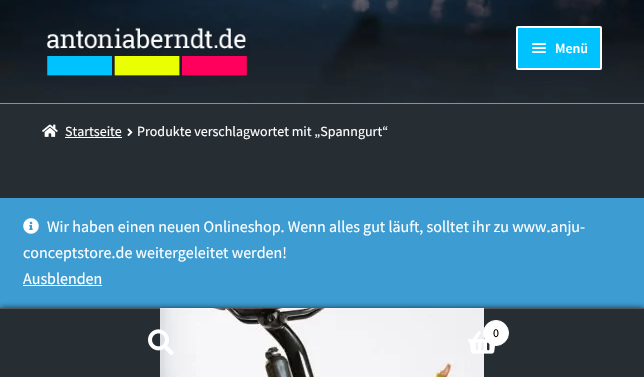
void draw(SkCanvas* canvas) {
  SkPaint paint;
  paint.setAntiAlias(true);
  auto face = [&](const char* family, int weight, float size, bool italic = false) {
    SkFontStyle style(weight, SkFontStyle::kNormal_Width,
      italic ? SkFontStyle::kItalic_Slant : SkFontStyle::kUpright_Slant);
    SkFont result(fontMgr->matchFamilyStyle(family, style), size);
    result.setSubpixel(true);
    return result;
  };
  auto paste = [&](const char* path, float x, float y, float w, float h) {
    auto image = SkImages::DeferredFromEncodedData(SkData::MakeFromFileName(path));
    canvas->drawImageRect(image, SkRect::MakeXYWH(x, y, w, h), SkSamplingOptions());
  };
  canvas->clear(0xff262d33);
  paste("img/1.png", 0, 0, 644, 103);
  paint.setColor(0xff00c2ff);
  canvas->drawRect(SkRect::MakeXYWH(0, 103, 644, 1), paint);
  paste("img/2.png", 47, 27, 200, 49);
  canvas->drawRoundRect(SkRect::MakeXYWH(517, 27, 84, 42), 1, 1, paint);
  paint.setStroke(true);
  paint.setStrokeWidth(2);
  paint.setColor(0xffffffff);
  canvas->drawRoundRect(SkRect::MakeXYWH(517, 27, 84, 42), 1, 1, paint);
  paint.setStroke(false);
  canvas->drawRoundRect(SkRect::MakeXYWH(532, 43, 14, 2), 1, 1, paint);
  canvas->drawRoundRect(SkRect::MakeXYWH(532, 47, 14, 2), 1, 1, paint);
  canvas->drawRoundRect(SkRect::MakeXYWH(532, 51, 14, 2), 1, 1, paint);
  paste("img/3.png", 42, 124, 16, 13);
  canvas->drawRect(SkRect::MakeXYWH(65, 137, 57, 1), paint);
  paste("img/4.png", 127, 128, 6, 9);
  paste("img/5.png", 160, 308, 324, 69);
  paint.setColor(0xff3d9cd2);
  canvas->drawRect(SkRect::MakeXYWH(0, 198, 644, 110), paint);
  canvas->save();
  canvas->clipRect(SkRect::MakeXYWH(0, 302, 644, 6));
  paint.setColor(0xb3000000);
  paint.setMaskFilter(SkMaskFilter::MakeBlur(kNormal_SkBlurStyle, 3));
  canvas->drawRect(SkRect::MakeXYWH(0, 308, 644, 69), paint);
  paint.setMaskFilter(nullptr);
  canvas->restore();
  paint.setColor(0x33ffffff);
  canvas->drawRect(SkRect::MakeXYWH(0, 308, 644, 1), paint);
  canvas->drawRect(SkRect::MakeXYWH(321, 309, 1, 5), paint);
  paste("img/6.png", 148, 329, 26, 26);
  paste("img/7.png", 468, 331, 28, 23);
  paint.setColor(0xffffffff);
  canvas->drawCircle(496, 333, 12.5f, paint);
  paint.setStroke(true);
  paint.setStrokeWidth(1);
  canvas->drawCircle(496, 333, 12.5f, paint);
  paste("img/8.png", 23, 218, 16, 16);
  paint.setStroke(false);
  canvas->drawRect(SkRect::MakeXYWH(23, 285, 79, 1), paint);
  auto f0 = face("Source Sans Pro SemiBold", 600, 14);
  canvas->drawString("Menü", 555, 53, f0, paint);
  auto f1 = face("Source Sans Pro", 400, 14);
  canvas->drawString("Startseite", 65, 136, f1, paint);
  canvas->drawString("Produkte verschlagwortet mit „Spanngurt“", 137, 136, f1, paint);
  auto f2 = face("Source Sans Pro", 400, 12);
  paint.setColor(0xff000000);
  canvas->drawString("0", 493, 337, f2, paint);
  auto f3 = face("Source Sans Pro", 400, 16);
  paint.setColor(0xffffffff);
  {
    const struct { const char* s; float x, y; } items[] = {
      {"Wir haben einen neuen Onlineshop. Wenn alles gut läuft, solltet ihr zu www.anju-", 47, 232},
      {"conceptstore.de weitergeleitet werden!", 23, 258},
      {"Ausblenden", 23, 284},
    };
    for (auto [s, x, y] : items) {
      canvas->drawString(s, x, y, f3, paint);
    }
  }
}
